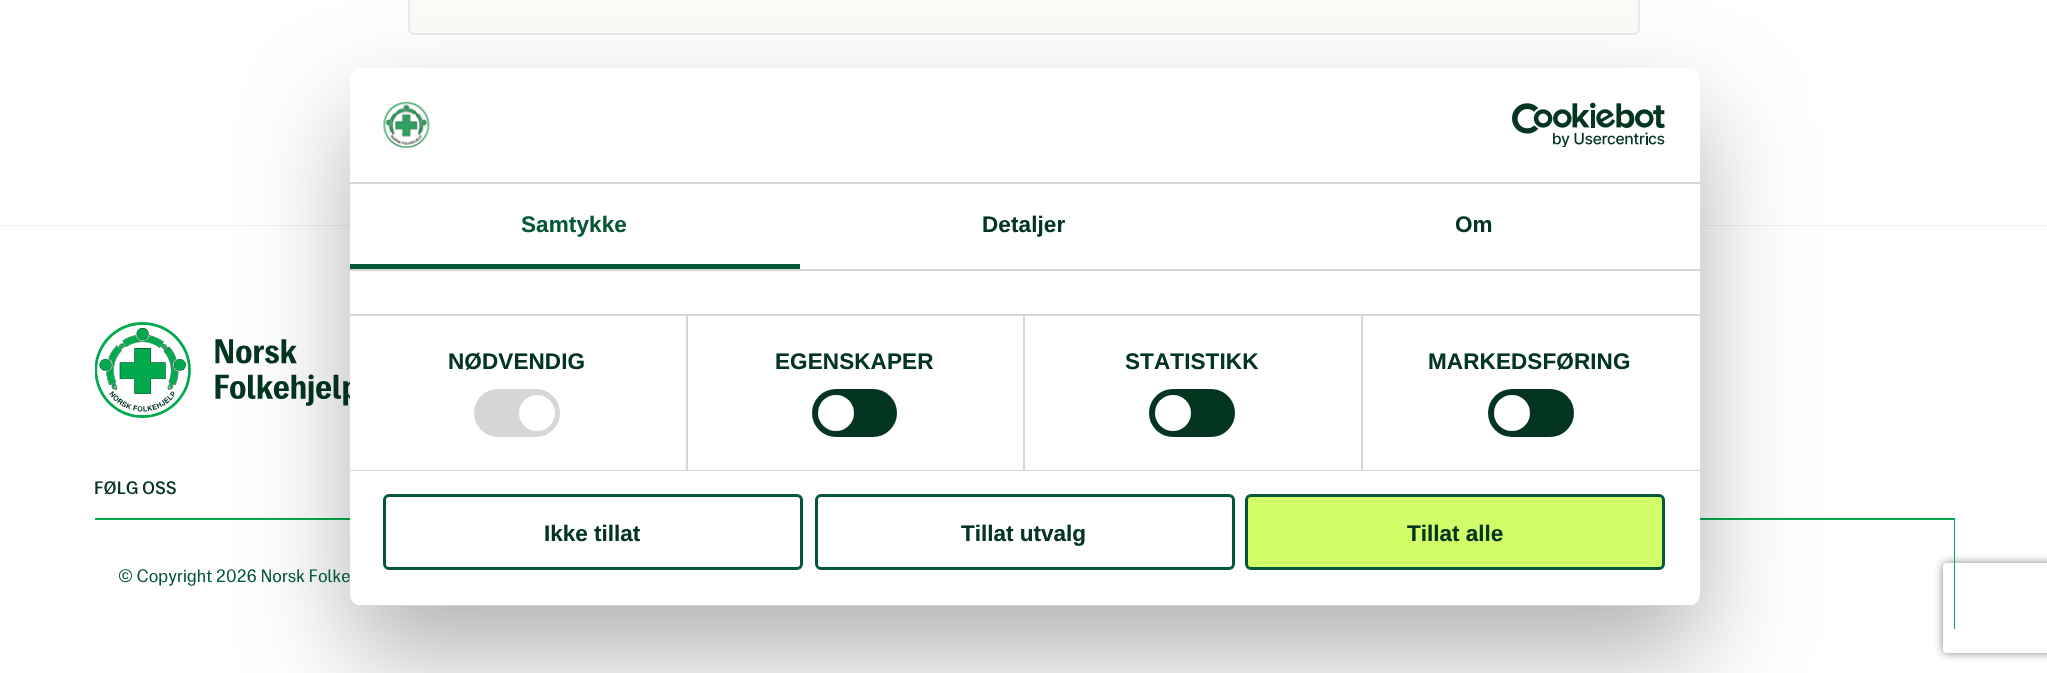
void draw(SkCanvas* canvas) {
  SkPaint paint;
  paint.setAntiAlias(true);
  auto face = [&](const char* family, int weight, float size, bool italic = false) {
    SkFontStyle style(weight, SkFontStyle::kNormal_Width,
      italic ? SkFontStyle::kItalic_Slant : SkFontStyle::kUpright_Slant);
    SkFont result(fontMgr->matchFamilyStyle(family, style), size);
    result.setSubpixel(true);
    return result;
  };
  auto writeSpaced = [&](const char* s, float x, float y, const SkFont& font, const SkPaint& ink, float letter, float word) {
    std::vector<SkGlyphID> glyphs(font.countText(s, strlen(s), SkTextEncoding::kUTF8));
    std::vector<float> xs(glyphs.size());
    font.textToGlyphs(s, strlen(s), SkTextEncoding::kUTF8, glyphs);
    font.getXPos(glyphs, xs, x);
    float extra = 0;
    for (size_t i = 0; i < glyphs.size(); i++) {
      xs[i] += extra;
      extra += letter + word * (glyphs[i] == font.unicharToGlyph(' '));
    }
    canvas->drawTextBlob(SkTextBlob::MakeFromPosHGlyphs(glyphs, xs, y, font), 0, 0, ink);
  };
  auto paste = [&](const char* path, float x, float y, float w, float h) {
    auto image = SkImages::DeferredFromEncodedData(SkData::MakeFromFileName(path));
    canvas->drawImageRect(image, SkRect::MakeXYWH(x, y, w, h), SkSamplingOptions());
  };
  auto shape = [&](const char* data, bool evenOdd = false) {
    SkPath result = *SkParsePath::FromSVGString(data);
    if (evenOdd) result.setFillType(SkPathFillType::kEvenOdd);
    return result;
  };
  canvas->clear(0xffffffff);
  paint.setColor(0xfff9fcf7);
  canvas->drawRoundRect(SkRect::MakeXYWH(409, -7, 1230, 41), 5, 5, paint);
  paint.setStroke(true);
  paint.setStrokeWidth(2);
  paint.setColor(0xffebebeb);
  canvas->drawRoundRect(SkRect::MakeXYWH(409, -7, 1230, 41), 5, 5, paint);
  paint.setStroke(false);
  paint.setColor(0xfff2f2f3);
  canvas->drawPath(shape("M0 225V226H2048V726V225Z"), paint);
  paste("img/1.png", 95, 322, 255, 96);
  paint.setColor(0xff01ab4d);
  canvas->drawPath(shape("M95 518V520H1954V629H1955V518Z"), paint);
  paint.setColor(0x4d000000);
  paint.setMaskFilter(SkMaskFilter::MakeBlur(kNormal_SkBlurStyle, 51));
  canvas->drawRoundRect(SkRect::MakeXYWH(350, 116, 1350, 538), 12, 12, paint);
  paint.setMaskFilter(nullptr);
  paint.setColor(0xffffffff);
  canvas->drawRoundRect(SkRect::MakeXYWH(350, 68, 1350, 538), 12, 12, paint);
  paint.setColor(0xffd6d6d6);
  canvas->drawRect(SkRect::MakeXYWH(350, 182, 1350, 2), paint);
  paste("img/2.png", 382, 101, 48, 48);
  paste("img/3.png", 1512, 102, 153, 45);
  {
    const struct { float x, y, w, h; SkColor color; } items[] = {
      {350, 269, 1350, 2, 0xffd6d6d6},
      {350, 264, 450, 5, 0xff045835},
      {686, 315, 2, 155, 0xffd6d6d6},
      {1023, 315, 2, 155, 0xffd6d6d6},
      {1361, 315, 2, 155, 0xffd6d6d6},
      {350, 314, 1350, 2, 0xffd6d6d6},
      {350, 470, 1350, 1, 0xffd6d6d6},
    };
    for (auto [x, y, w, h, color] : items) {
      paint.setColor(color);
      canvas->drawRect(SkRect::MakeXYWH(x, y, w, h), paint);
    }
  }
  canvas->drawRoundRect(SkRect::MakeXYWH(474, 389, 86, 48), 24, 24, paint);
  paint.setColor(0xffffffff);
  canvas->drawCircle(537, 413, 18, paint);
  paint.setColor(0xff033520);
  canvas->drawRoundRect(SkRect::MakeXYWH(812, 389, 85, 48), 24, 24, paint);
  paint.setColor(0xffffffff);
  canvas->drawCircle(836, 413, 18, paint);
  paint.setColor(0xff033520);
  canvas->drawRoundRect(SkRect::MakeXYWH(1149, 389, 86, 48), 24, 24, paint);
  paint.setColor(0xffffffff);
  canvas->drawCircle(1173, 413, 18, paint);
  paint.setColor(0xff033520);
  canvas->drawRoundRect(SkRect::MakeXYWH(1488, 389, 86, 48), 24, 24, paint);
  paint.setColor(0xffffffff);
  canvas->drawCircle(1512, 413, 18, paint);
  canvas->save();
  canvas->clipPath(shape("M362 68H1688C1694.5 68 1700 73.5 1700 80V594C1700 600.5 1694.5 606 1688 606H362C355.5 606 350 600.5 350 594V80C350 73.5 355.5 68 362 68Z"), true);
  paint.setColor(0xffd6d6d6);
  canvas->drawRect(SkRect::MakeXYWH(350, 605, 1350, 1), paint);
  canvas->restore();
  paint.setStroke(true);
  paint.setStrokeWidth(3);
  paint.setColor(0xff045835);
  canvas->drawRoundRect(SkRect::MakeXYWH(384.5f, 495.5f, 417, 73), 4.5f, 4.5f, paint);
  canvas->drawRoundRect(SkRect::MakeXYWH(816.5f, 495.5f, 417, 73), 4.5f, 4.5f, paint);
  paint.setStroke(false);
  paint.setColor(0xffd1fd68);
  canvas->drawRoundRect(SkRect::MakeXYWH(1246.5f, 495.5f, 417, 73), 4.5f, 4.5f, paint);
  paint.setStroke(true);
  paint.setColor(0xff045835);
  canvas->drawRoundRect(SkRect::MakeXYWH(1246.5f, 495.5f, 417, 73), 4.5f, 4.5f, paint);
  canvas->save();
  canvas->clipPath(shape("M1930 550H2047V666H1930ZM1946 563H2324C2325.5 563 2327 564.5 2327 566V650C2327 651.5 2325.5 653 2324 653H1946C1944.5 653 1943 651.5 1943 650V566C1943 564.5 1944.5 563 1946 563Z", true), true);
  paint.setStroke(false);
  paint.setColor(0xff808080);
  paint.setMaskFilter(SkMaskFilter::MakeBlur(kNormal_SkBlurStyle, 4));
  canvas->drawRoundRect(SkRect::MakeXYWH(1943, 563, 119, 90), 3, 3, paint);
  paint.setMaskFilter(nullptr);
  canvas->restore();
  auto f0 = face("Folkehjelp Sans", 600, 18);
  paint.setColor(0xff033520);
  canvas->drawString("FØLG OSS", 94, 494, f0, paint);
  auto f1 = face("Folkehjelp Sans", 400, 18);
  paint.setColor(0xff045835);
  canvas->drawString("© Copyright 2026 Norsk Folke", 118, 582, f1, paint);
  auto f2 = face("Liberation Sans", 700, 22.5f);
  writeSpaced("Samtykke", 521, 232, f2, paint, 0.1f, 0);
  paint.setColor(0xff033520);
  {
    const struct { const char* s; float x, y; } items[] = {
      {"Detaljer", 982, 232},
      {"Om", 1455, 232},
      {"NØDVENDIG", 448, 369},
      {"EGENSKAPER", 775, 369},
      {"STATISTIKK", 1125, 369},
      {"MARKEDSFØRING", 1428, 369},
    };
    for (auto [s, x, y] : items) {
      writeSpaced(s, x, y, f2, paint, 0.1f, 0);
    }
  }
  {
    const struct { const char* s; float x, y; } items[] = {
      {"Ikke tillat", 544, 541},
      {"Tillat utvalg", 961, 541},
      {"Tillat alle", 1407, 541},
    };
    for (auto [s, x, y] : items) {
      canvas->drawString(s, x, y, f2, paint);
    }
  }
}
